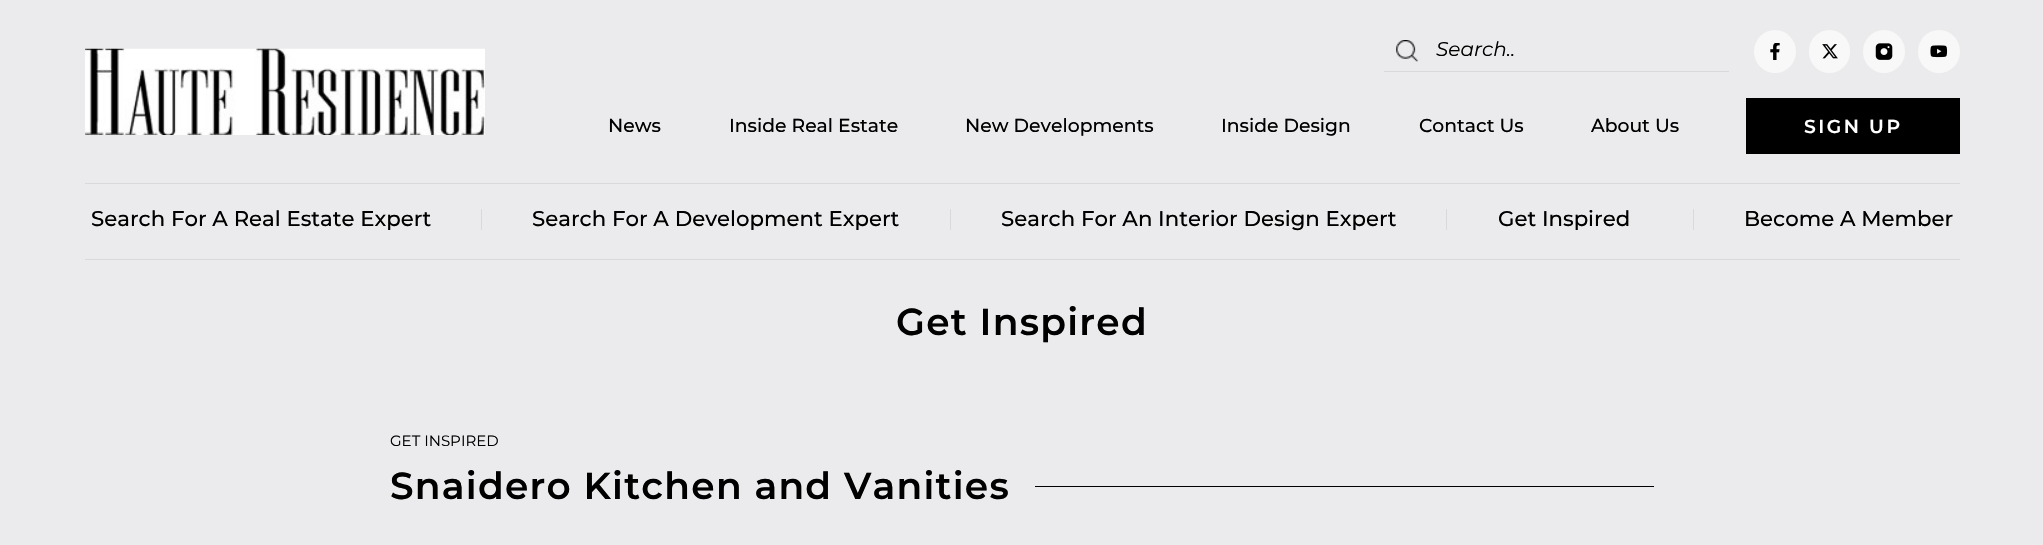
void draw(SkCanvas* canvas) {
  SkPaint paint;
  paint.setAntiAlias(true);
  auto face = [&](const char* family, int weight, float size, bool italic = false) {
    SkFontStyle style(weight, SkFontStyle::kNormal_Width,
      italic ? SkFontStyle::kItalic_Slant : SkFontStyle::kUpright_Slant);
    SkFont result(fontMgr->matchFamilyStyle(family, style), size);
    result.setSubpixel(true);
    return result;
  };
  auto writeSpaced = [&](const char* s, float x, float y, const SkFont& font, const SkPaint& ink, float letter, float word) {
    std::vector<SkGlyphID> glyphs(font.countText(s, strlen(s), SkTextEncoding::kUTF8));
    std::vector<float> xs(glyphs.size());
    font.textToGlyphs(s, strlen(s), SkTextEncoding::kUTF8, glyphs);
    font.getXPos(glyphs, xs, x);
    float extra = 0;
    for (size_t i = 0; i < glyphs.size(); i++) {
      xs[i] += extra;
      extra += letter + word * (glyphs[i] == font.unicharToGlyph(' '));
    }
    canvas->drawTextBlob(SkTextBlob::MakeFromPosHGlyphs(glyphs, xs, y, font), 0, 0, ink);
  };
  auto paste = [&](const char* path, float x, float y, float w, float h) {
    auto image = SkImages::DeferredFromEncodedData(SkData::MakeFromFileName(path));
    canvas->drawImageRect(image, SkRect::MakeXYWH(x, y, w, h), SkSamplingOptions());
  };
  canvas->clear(0xffebebed);
  paste("img/1.png", 85, 48, 400, 87);
  paste("img/2.png", 1396, 40, 22, 22);
  paint.setColor(0xffd9d9dc);
  canvas->drawRect(SkRect::MakeXYWH(1384, 71, 345, 1), paint);
  paint.setColor(0xfff8f8f8);
  canvas->drawRoundRect(SkRect::MakeXYWH(1754, 30, 42, 43), 21, 21, paint);
  paste("img/3.png", 1770, 43, 10, 17);
  canvas->drawRoundRect(SkRect::MakeXYWH(1809, 30, 41, 43), 20.5f, 20.5f, paint);
  paste("img/4.png", 1822, 44, 16, 15);
  canvas->drawRoundRect(SkRect::MakeXYWH(1863, 30, 42, 43), 21, 21, paint);
  paste("img/5.png", 1875, 43, 18, 17);
  canvas->drawRoundRect(SkRect::MakeXYWH(1918, 30, 42, 43), 21, 21, paint);
  paste("img/6.png", 1930, 45, 18, 13);
  {
    const struct { float x, y, w, h; SkColor color; } items[] = {
      {1746, 98, 214, 56, 0xff000000},
      {85, 183, 1875, 1, 0xffd9d9dc},
      {85, 259, 1875, 1, 0xffd9d9dc},
      {481, 209, 1, 21, 0xffd9d9dc},
      {950, 209, 1, 21, 0xffd9d9dc},
      {1446, 209, 1, 21, 0xffd9d9dc},
      {1693, 209, 1, 21, 0xffd9d9dc},
      {1035, 486, 619, 1, 0xff000000},
    };
    for (auto [x, y, w, h, color] : items) {
      paint.setColor(color);
      canvas->drawRect(SkRect::MakeXYWH(x, y, w, h), paint);
    }
  }
  auto f0 = face("Montserrat", 400, 20, true);
  canvas->drawString("Search..", 1436, 56, f0, paint);
  auto f1 = face("Montserrat", 500, 18.75f);
  {
    const struct { const char* s; float x, y; } items[] = {
      {"News", 608, 132},
      {"Inside Real Estate", 729, 132},
      {"New Developments", 965, 132},
      {"Inside Design", 1221, 132},
      {"Contact Us", 1419, 132},
      {"About Us", 1591, 132},
    };
    for (auto [s, x, y] : items) {
      canvas->drawString(s, x, y, f1, paint);
    }
  }
  auto f2 = face("Montserrat", 600, 18.75f);
  paint.setColor(0xffffffff);
  writeSpaced("SIGN UP", 1804, 133, f2, paint, 2.5f, 0);
  auto f3 = face("Montserrat", 500, 21.25f);
  paint.setColor(0xff000000);
  {
    const struct { const char* s; float x, y; } items[] = {
      {"Search For A Real Estate Expert", 91, 226},
      {"Search For A Development Expert", 532, 226},
      {"Search For An Interior Design Expert", 1001, 226},
      {"Get Inspired", 1498, 226},
      {"Become A Member", 1744, 226},
    };
    for (auto [s, x, y] : items) {
      canvas->drawString(s, x, y, f3, paint);
    }
  }
  auto f4 = face("Montserrat", 600, 37.5f);
  writeSpaced("Get Inspired", 896, 335, f4, paint, 1.25f, 0);
  auto f5 = face("Montserrat", 400, 15);
  canvas->drawString("GET INSPIRED", 390, 446, f5, paint);
  writeSpaced("Snaidero Kitchen and Vanities", 390, 499, f4, paint, 1.25f, 0);
}
